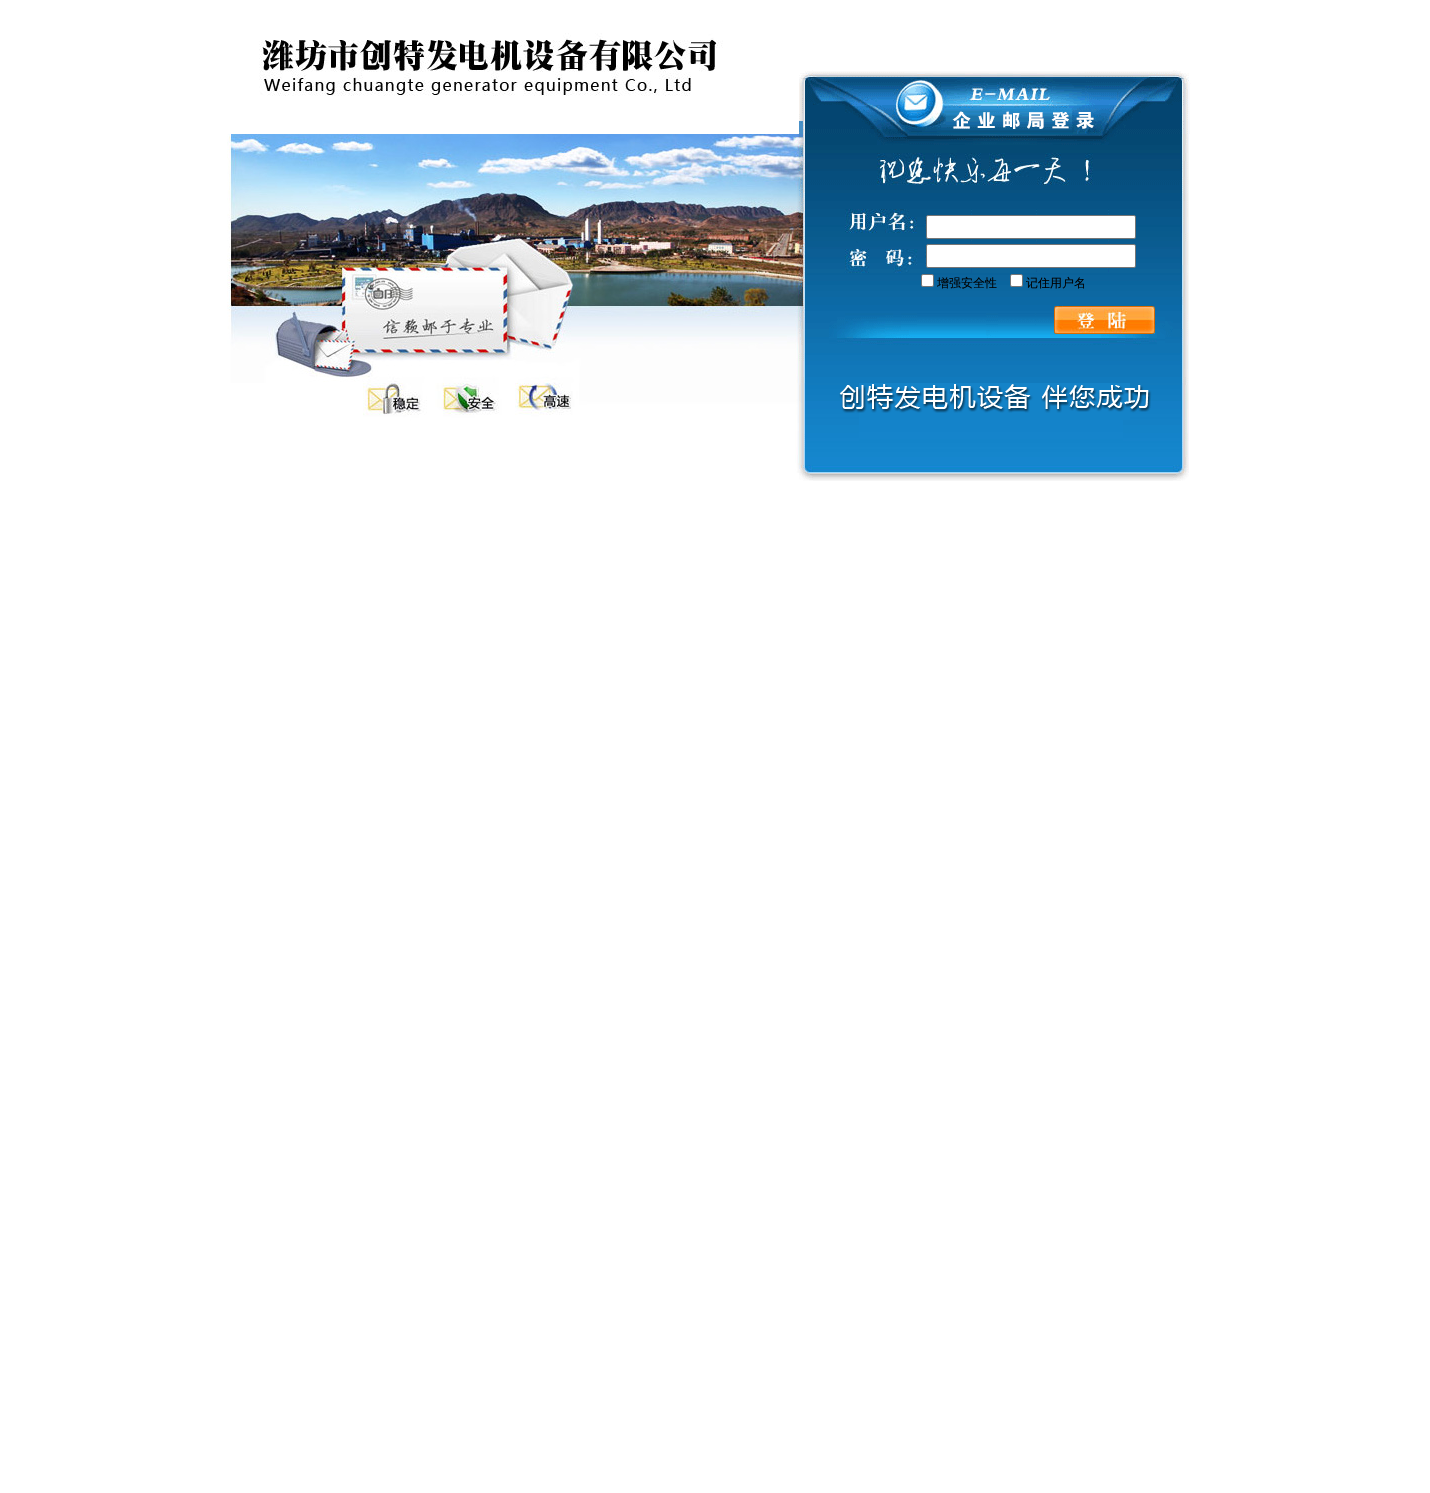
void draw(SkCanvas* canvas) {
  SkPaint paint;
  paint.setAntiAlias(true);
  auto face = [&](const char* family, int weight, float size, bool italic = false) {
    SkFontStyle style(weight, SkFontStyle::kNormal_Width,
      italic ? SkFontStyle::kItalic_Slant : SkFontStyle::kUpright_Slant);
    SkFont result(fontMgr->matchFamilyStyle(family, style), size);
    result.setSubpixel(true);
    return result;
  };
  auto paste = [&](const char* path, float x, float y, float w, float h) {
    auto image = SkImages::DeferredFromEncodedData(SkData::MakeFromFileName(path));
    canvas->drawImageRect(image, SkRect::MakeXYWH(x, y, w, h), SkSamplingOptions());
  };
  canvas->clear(0xffffffff);
  paste("img/1.png", 259, 33, 464, 63);
  paste("img/2.png", 799, 70, 392, 64);
  paste("img/3.png", 227, 134, 572, 249);
  paste("img/4.png", 799, 134, 390, 249);
  paint.setColor(0xffffffff);
  canvas->drawRoundRect(SkRect::MakeXYWH(926.5f, 215.5f, 209, 23), 1.5f, 1.5f, paint);
  paint.setStroke(true);
  paint.setStrokeWidth(1);
  paint.setColor(0xff767676);
  canvas->drawRoundRect(SkRect::MakeXYWH(926.5f, 215.5f, 209, 23), 1.5f, 1.5f, paint);
  paint.setStroke(false);
  paint.setColor(0xffffffff);
  canvas->drawRoundRect(SkRect::MakeXYWH(926.5f, 244.5f, 209, 23), 1.5f, 1.5f, paint);
  paint.setStroke(true);
  paint.setColor(0xff767676);
  canvas->drawRoundRect(SkRect::MakeXYWH(926.5f, 244.5f, 209, 23), 1.5f, 1.5f, paint);
  paint.setStroke(false);
  paint.setColor(0xffffffff);
  canvas->drawRoundRect(SkRect::MakeXYWH(921.5f, 274.5f, 12, 12), 1.5f, 1.5f, paint);
  paint.setStroke(true);
  paint.setColor(0xff767676);
  canvas->drawRoundRect(SkRect::MakeXYWH(921.5f, 274.5f, 12, 12), 1.5f, 1.5f, paint);
  paint.setStroke(false);
  paint.setColor(0xffffffff);
  canvas->drawRoundRect(SkRect::MakeXYWH(1010.5f, 274.5f, 12, 12), 1.5f, 1.5f, paint);
  paint.setStroke(true);
  paint.setColor(0xff767676);
  canvas->drawRoundRect(SkRect::MakeXYWH(1010.5f, 274.5f, 12, 12), 1.5f, 1.5f, paint);
  paste("img/5.png", 1054, 305, 101, 29);
  paste("img/6.png", 363, 383, 436, 90);
  paste("img/7.png", 799, 383, 390, 98);
  auto f0 = face("WenQuanYi Zen Hei", 500, 12);
  paint.setStroke(false);
  paint.setColor(0xff000000);
  canvas->drawString("增强安全性", 937, 287, f0, paint);
  canvas->drawString("记住用户名", 1026, 287, f0, paint);
}
